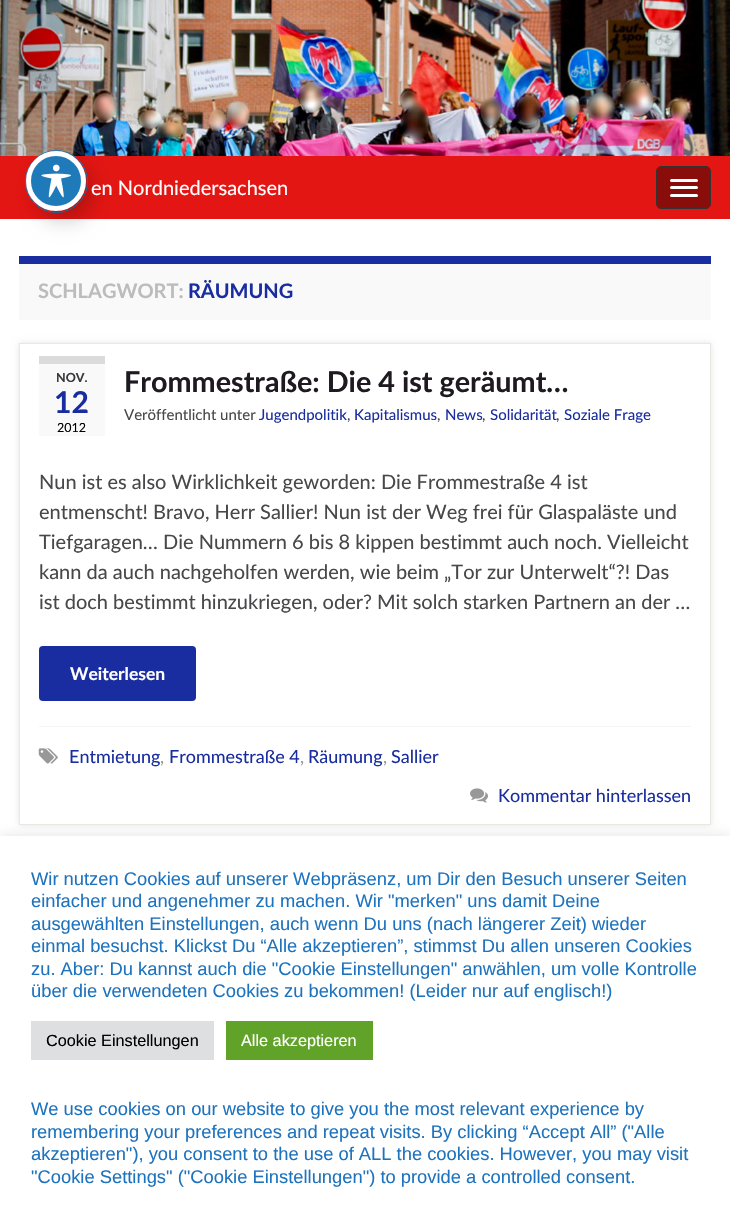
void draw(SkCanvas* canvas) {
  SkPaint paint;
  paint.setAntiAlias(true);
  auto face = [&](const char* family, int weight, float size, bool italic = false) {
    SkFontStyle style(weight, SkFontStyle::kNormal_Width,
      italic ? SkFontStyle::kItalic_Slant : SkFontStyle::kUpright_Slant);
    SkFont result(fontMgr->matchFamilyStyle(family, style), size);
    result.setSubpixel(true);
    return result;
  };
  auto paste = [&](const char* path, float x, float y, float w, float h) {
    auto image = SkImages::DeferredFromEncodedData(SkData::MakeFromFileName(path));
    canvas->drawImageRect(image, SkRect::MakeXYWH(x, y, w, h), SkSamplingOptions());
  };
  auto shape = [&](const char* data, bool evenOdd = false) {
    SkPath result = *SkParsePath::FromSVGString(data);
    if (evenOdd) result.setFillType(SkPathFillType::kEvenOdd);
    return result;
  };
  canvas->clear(0xffffffff);
  paste("img/2.png", 0, 0, 730, 156);
  paint.setColor(0xffe31613);
  canvas->drawRect(SkRect::MakeXYWH(0, 156, 730, 63), paint);
  paint.setStroke(true);
  paint.setStrokeWidth(1);
  paint.setColor(0xff1e7ab9);
  canvas->drawCircle(56.5f, 181.5f, 31, paint);
  paint.setStroke(false);
  paint.setColor(0x33000000);
  paint.setMaskFilter(SkMaskFilter::MakeBlur(kNormal_SkBlurStyle, 10));
  canvas->drawRoundRect(SkRect::MakeXYWH(34, 161, 60, 60), 30, 30, paint);
  paint.setMaskFilter(nullptr);
  paint.setColor(0xff1e7ab9);
  canvas->drawCircle(56, 181, 27.5f, paint);
  paint.setStroke(true);
  paint.setStrokeWidth(5);
  paint.setColor(0xffffffff);
  canvas->drawCircle(56, 181, 27.5f, paint);
  paste("img/1.png", 41, 164, 30, 34);
  paint.setStroke(false);
  paint.setColor(0xff880d0b);
  canvas->drawRoundRect(SkRect::MakeXYWH(656.5f, 166.5f, 54, 42), 4.5f, 4.5f, paint);
  paint.setStroke(true);
  paint.setStrokeWidth(1);
  paint.setColor(0xff333333);
  canvas->drawRoundRect(SkRect::MakeXYWH(656.5f, 166.5f, 54, 42), 4.5f, 4.5f, paint);
  paint.setStroke(false);
  paint.setColor(0xffffffff);
  canvas->drawRoundRect(SkRect::MakeXYWH(670, 179, 28, 3), 1.5f, 1.5f, paint);
  canvas->drawRoundRect(SkRect::MakeXYWH(670, 186, 28, 3), 1.5f, 1.5f, paint);
  canvas->drawRoundRect(SkRect::MakeXYWH(670, 194, 28, 3), 1.5f, 1.5f, paint);
  paint.setColor(0xfff9f9f9);
  canvas->drawRect(SkRect::MakeXYWH(19, 264, 692, 56), paint);
  paint.setColor(0xff192da0);
  canvas->drawRect(SkRect::MakeXYWH(19, 256, 692, 8), paint);
  canvas->save();
  canvas->clipPath(shape("M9 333H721V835H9ZM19 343H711V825H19Z", true), true);
  paint.setColor(0x1a000000);
  paint.setMaskFilter(SkMaskFilter::MakeBlur(kNormal_SkBlurStyle, 3));
  canvas->drawRect(SkRect::MakeXYWH(19, 343, 692, 482), paint);
  paint.setMaskFilter(nullptr);
  canvas->restore();
  paint.setStroke(true);
  paint.setColor(0xffe9e8e3);
  canvas->drawRect(SkRect::MakeXYWH(19.5f, 343.5f, 691, 481), paint);
  paint.setStroke(false);
  paint.setColor(0xfff9f9f9);
  canvas->drawRect(SkRect::MakeXYWH(39, 364, 66, 72), paint);
  paint.setColor(0xffdbdbdb);
  canvas->drawRect(SkRect::MakeXYWH(39, 356, 66, 8), paint);
  paint.setColor(0xff192da0);
  canvas->drawRoundRect(SkRect::MakeXYWH(39, 646, 157, 55), 4, 4, paint);
  paint.setColor(0xfff5f5f5);
  canvas->drawRect(SkRect::MakeXYWH(39, 726, 652, 1), paint);
  paste("img/3.png", 38, 748, 20, 16);
  paste("img/4.png", 470, 788, 18, 15);
  paint.setColor(0x4dacabab);
  paint.setMaskFilter(SkMaskFilter::MakeBlur(kNormal_SkBlurStyle, 6));
  canvas->drawRect(SkRect::MakeXYWH(0, 835, 730, 383), paint);
  paint.setMaskFilter(nullptr);
  {
    const struct { float x, y, w, h; SkColor color; } items[] = {
      {0, 836, 730, 382, 0xffffffff},
      {31, 1021, 183, 39, 0xffdedfe0},
      {226, 1021, 147, 39, 0xff61a229},
    };
    for (auto [x, y, w, h, color] : items) {
      paint.setColor(color);
      canvas->drawRect(SkRect::MakeXYWH(x, y, w, h), paint);
    }
  }
  auto f0 = face("Lato", 400, 20);
  paint.setColor(0xffffffff);
  canvas->drawString("en Nordniedersachsen", 91, 195, f0, paint);
  auto f1 = face("Lato", 700, 20);
  paint.setColor(0xffbcbcbc);
  canvas->drawString("SCHLAGWORT:", 38, 298, f1, paint);
  paint.setColor(0xff192da0);
  canvas->drawString("RÄUMUNG", 188, 298, f1, paint);
  auto f2 = face("Lato", 700, 12.5f);
  paint.setColor(0xff3b383d);
  canvas->drawString("NOV.", 56, 382, f2, paint);
  auto f3 = face("Lato", 700, 30);
  paint.setColor(0xff192da0);
  canvas->drawString("12", 54, 413, f3, paint);
  auto f4 = face("Lato", 400, 12.5f);
  paint.setColor(0xff000000);
  canvas->drawString("2012", 57, 432, f4, paint);
  auto f5 = face("Lato", 700, 28.75f);
  paint.setColor(0xff1f1a22);
  canvas->drawString("Frommestraße: Die 4 ist geräumt…", 124, 392, f5, paint);
  auto f6 = face("Lato", 400, 15);
  paint.setColor(0xff4a474b);
  canvas->drawString("Veröffentlicht unter", 124, 420, f6, paint);
  paint.setColor(0xff192da0);
  canvas->drawString("Jugendpolitik", 259, 420, f6, paint);
  paint.setColor(0xff4a474b);
  canvas->drawString(",", 347, 420, f6, paint);
  paint.setColor(0xff192da0);
  canvas->drawString("Kapitalismus", 354, 420, f6, paint);
  paint.setColor(0xff4a474b);
  canvas->drawString(",", 437, 420, f6, paint);
  paint.setColor(0xff192da0);
  canvas->drawString("News", 445, 420, f6, paint);
  paint.setColor(0xff4a474b);
  canvas->drawString(",", 482, 420, f6, paint);
  paint.setColor(0xff192da0);
  canvas->drawString("Solidarität", 490, 420, f6, paint);
  paint.setColor(0xff4a474b);
  canvas->drawString(",", 556, 420, f6, paint);
  paint.setColor(0xff192da0);
  canvas->drawString("Soziale Frage", 564, 420, f6, paint);
  paint.setColor(0xff4a474b);
  {
    const struct { const char* s; float x, y; } items[] = {
      {"Nun ist es also Wirklichkeit geworden: Die Frommestraße 4 ist", 39, 489},
      {"entmenscht! Bravo, Herr Sallier! Nun ist der Weg frei für Glaspaläste und", 39, 519},
      {"Tiefgaragen… Die Nummern 6 bis 8 kippen bestimmt auch noch. Vielleicht", 39, 549},
      {"kann da auch nachgeholfen werden, wie beim „Tor zur Unterwelt“?! Das", 39, 579},
      {"ist doch bestimmt hinzukriegen, oder? Mit solch starken Partnern an der …", 39, 609},
    };
    for (auto [s, x, y] : items) {
      canvas->drawString(s, x, y, f0, paint);
    }
  }
  auto f7 = face("Lato", 700, 17.5f);
  paint.setColor(0xffffffff);
  canvas->drawString("Weiterlesen", 70, 680, f7, paint);
  auto f8 = face("Lato", 400, 18);
  paint.setColor(0xff192da0);
  canvas->drawString("Entmietung", 69, 763, f8, paint);
  paint.setColor(0xff989898);
  canvas->drawString(",", 160, 763, f8, paint);
  paint.setColor(0xff192da0);
  canvas->drawString("Frommestraße 4", 169, 763, f8, paint);
  paint.setColor(0xff989898);
  canvas->drawString(",", 300, 763, f8, paint);
  paint.setColor(0xff192da0);
  canvas->drawString("Räumung", 308, 763, f8, paint);
  paint.setColor(0xff989898);
  canvas->drawString(",", 383, 763, f8, paint);
  paint.setColor(0xff192da0);
  canvas->drawString("Sallier", 391, 763, f8, paint);
  canvas->drawString("Kommentar hinterlassen", 498, 802, f8, paint);
  auto f9 = face("Liberation Sans", 400, 18.35f);
  paint.setColor(0xff1e73be);
  {
    const struct { const char* s; float x, y; } items[] = {
      {"Wir nutzen Cookies auf unserer Webpräsenz, um Dir den Besuch unserer Seiten", 31, 885},
      {"einfacher und angenehmer zu machen. Wir \"merken\" uns damit Deine", 31, 907},
      {"ausgewählten Einstellungen, auch wenn Du uns (nach längerer Zeit) wieder", 31, 930},
      {"einmal besuchst. Klickst Du “Alle akzeptieren”, stimmst Du allen unseren Cookies", 31, 952},
      {"zu. Aber: Du kannst auch die \"Cookie Einstellungen\" anwählen, um volle Kontrolle", 31, 975},
      {"über die verwendeten Cookies zu bekommen! (Leider nur auf englisch!)", 31, 997},
    };
    for (auto [s, x, y] : items) {
      canvas->drawString(s, x, y, f9, paint);
    }
  }
  auto f10 = face("Liberation Sans", 400, 16.25f);
  paint.setColor(0xff000000);
  canvas->drawString("Cookie Einstellungen", 46, 1046, f10, paint);
  paint.setColor(0xffffffff);
  canvas->drawString("Alle akzeptieren", 241, 1046, f10, paint);
  paint.setColor(0xff1e73be);
  {
    const struct { const char* s; float x, y; } items[] = {
      {"We use cookies on our website to give you the most relevant experience by", 31, 1115},
      {"remembering your preferences and repeat visits. By clicking “Accept All” (\"Alle", 31, 1138},
      {"akzeptieren\"), you consent to the use of ALL the cookies. However, you may visit", 31, 1160},
      {"\"Cookie Settings\" (\"Cookie Einstellungen\") to provide a controlled consent.", 31, 1183},
    };
    for (auto [s, x, y] : items) {
      canvas->drawString(s, x, y, f9, paint);
    }
  }
}
